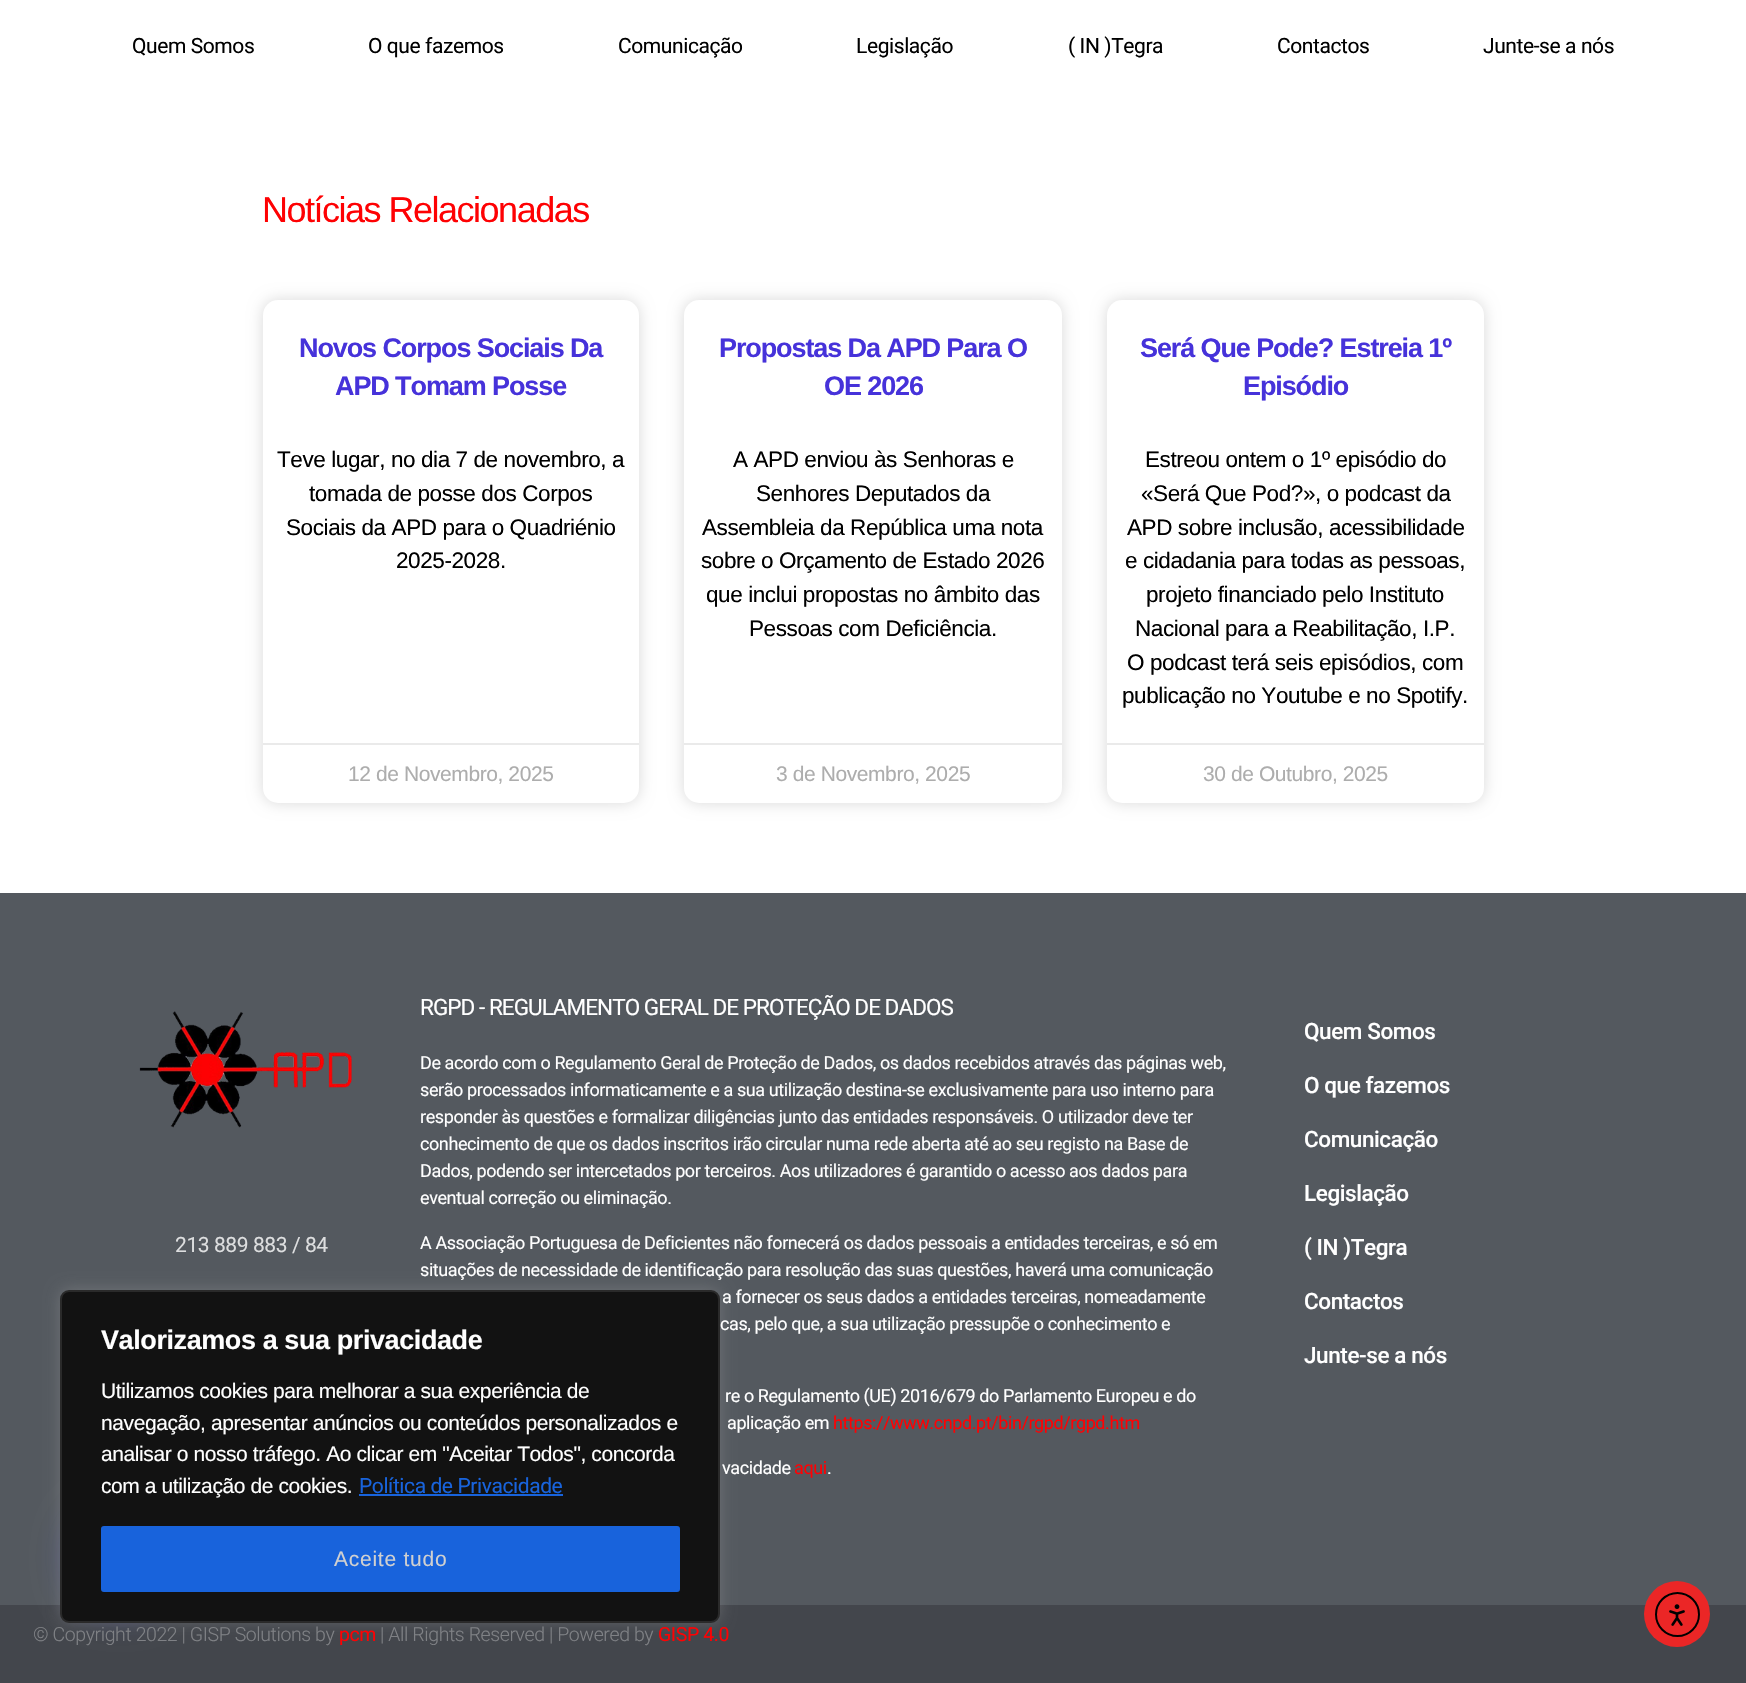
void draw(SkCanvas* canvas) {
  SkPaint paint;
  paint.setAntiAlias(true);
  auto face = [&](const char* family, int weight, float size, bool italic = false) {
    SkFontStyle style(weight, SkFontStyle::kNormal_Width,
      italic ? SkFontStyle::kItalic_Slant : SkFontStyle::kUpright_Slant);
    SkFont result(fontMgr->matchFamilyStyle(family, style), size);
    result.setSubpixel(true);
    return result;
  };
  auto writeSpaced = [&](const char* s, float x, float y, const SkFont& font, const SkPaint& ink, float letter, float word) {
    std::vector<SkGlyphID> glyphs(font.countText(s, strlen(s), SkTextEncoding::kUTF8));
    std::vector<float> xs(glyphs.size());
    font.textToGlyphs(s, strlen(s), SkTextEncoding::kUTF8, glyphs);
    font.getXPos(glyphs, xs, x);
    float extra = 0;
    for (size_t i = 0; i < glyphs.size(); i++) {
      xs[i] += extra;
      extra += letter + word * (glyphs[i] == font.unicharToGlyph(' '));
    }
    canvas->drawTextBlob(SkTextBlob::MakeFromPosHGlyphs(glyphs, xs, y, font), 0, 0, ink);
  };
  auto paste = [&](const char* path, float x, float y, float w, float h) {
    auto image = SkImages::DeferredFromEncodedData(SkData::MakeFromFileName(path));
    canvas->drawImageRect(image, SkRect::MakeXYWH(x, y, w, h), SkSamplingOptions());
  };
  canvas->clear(0xffffffff);
  paint.setColor(0x26000000);
  paint.setMaskFilter(SkMaskFilter::MakeBlur(kNormal_SkBlurStyle, 7.5f));
  canvas->drawRoundRect(SkRect::MakeXYWH(263, 300, 376, 503), 15, 15, paint);
  paint.setMaskFilter(nullptr);
  paint.setColor(0xffffffff);
  canvas->drawRoundRect(SkRect::MakeXYWH(263, 300, 376, 503), 15, 15, paint);
  paint.setColor(0xffeaeaea);
  canvas->drawRect(SkRect::MakeXYWH(263, 743, 376, 2), paint);
  paint.setColor(0x26000000);
  paint.setMaskFilter(SkMaskFilter::MakeBlur(kNormal_SkBlurStyle, 7.5f));
  canvas->drawRoundRect(SkRect::MakeXYWH(684, 300, 378, 503), 15, 15, paint);
  paint.setMaskFilter(nullptr);
  paint.setColor(0xffffffff);
  canvas->drawRoundRect(SkRect::MakeXYWH(684, 300, 378, 503), 15, 15, paint);
  paint.setColor(0xffeaeaea);
  canvas->drawRect(SkRect::MakeXYWH(684, 743, 378, 2), paint);
  paint.setColor(0x26000000);
  paint.setMaskFilter(SkMaskFilter::MakeBlur(kNormal_SkBlurStyle, 7.5f));
  canvas->drawRoundRect(SkRect::MakeXYWH(1107, 300, 377, 503), 15, 15, paint);
  paint.setMaskFilter(nullptr);
  paint.setColor(0xffffffff);
  canvas->drawRoundRect(SkRect::MakeXYWH(1107, 300, 377, 503), 15, 15, paint);
  {
    const struct { float x, y, w, h; SkColor color; } items[] = {
      {1107, 743, 377, 2, 0xffeaeaea},
      {0, 893, 1746, 712, 0xff54595f},
      {0, 1605, 1746, 78, 0xff43464c},
    };
    for (auto [x, y, w, h, color] : items) {
      paint.setColor(color);
      canvas->drawRect(SkRect::MakeXYWH(x, y, w, h), paint);
    }
  }
  paint.setColor(0x593538f0);
  paint.setMaskFilter(SkMaskFilter::MakeBlur(kNormal_SkBlurStyle, 19));
  canvas->drawRoundRect(SkRect::MakeXYWH(74, 1508, 93, 100), 46.5f, 46.5f, paint);
  paint.setMaskFilter(nullptr);
  paste("img/1.png", 139, 1011, 213, 117);
  paint.setColor(0x4dacabab);
  paint.setMaskFilter(SkMaskFilter::MakeBlur(kNormal_SkBlurStyle, 7.5f));
  canvas->drawRoundRect(SkRect::MakeXYWH(60, 1289, 660, 333), 9, 9, paint);
  paint.setMaskFilter(nullptr);
  paint.setColor(0xff121212);
  canvas->drawRoundRect(SkRect::MakeXYWH(61, 1291, 658, 331), 8, 8, paint);
  paint.setStroke(true);
  paint.setStrokeWidth(2);
  paint.setColor(0xff2a2a2a);
  canvas->drawRoundRect(SkRect::MakeXYWH(61, 1291, 658, 331), 8, 8, paint);
  paint.setStroke(false);
  paint.setColor(0xff1863dc);
  canvas->drawRect(SkRect::MakeXYWH(359, 1494, 204, 2), paint);
  canvas->drawRoundRect(SkRect::MakeXYWH(102.5f, 1527.5f, 576, 63), 1.5f, 1.5f, paint);
  paint.setStroke(true);
  paint.setStrokeWidth(3);
  canvas->drawRoundRect(SkRect::MakeXYWH(102.5f, 1527.5f, 576, 63), 1.5f, 1.5f, paint);
  paint.setStroke(false);
  paint.setColor(0xffeb2626);
  canvas->drawCircle(1677, 1614, 33, paint);
  paint.setStroke(true);
  paint.setStrokeWidth(2);
  paint.setColor(0xff000000);
  canvas->drawCircle(1677.5f, 1614.5f, 21.5f, paint);
  paste("img/2.png", 1669, 1604, 16, 22);
  auto f0 = face("Roboto", 400, 21);
  paint.setStroke(false);
  {
    const struct { const char* s; float x, y; } items[] = {
      {"Quem Somos", 132, 53},
      {"O que fazemos", 368, 53},
      {"Comunicação", 618, 53},
      {"Legislação", 856, 53},
      {"( IN )Tegra", 1068, 53},
      {"Contactos", 1277, 53},
      {"Junte-se a nós", 1483, 53},
    };
    for (auto [s, x, y] : items) {
      writeSpaced(s, x, y, f0, paint, -0.41f, 0);
    }
  }
  auto f1 = face("Liberation Sans", 400, 36);
  paint.setColor(0xfffe0103);
  writeSpaced("Notícias Relacionadas", 262, 222, f1, paint, -1.5f, 0);
  auto f2 = face("Liberation Sans", 700, 27);
  paint.setColor(0xff4632da);
  writeSpaced("Novos Corpos Sociais Da", 299, 357, f2, paint, -1.1f, 0);
  writeSpaced("APD Tomam Posse", 335, 395, f2, paint, -1.1f, 0);
  auto f3 = face("Liberation Sans", 400, 22.5f);
  paint.setColor(0xff000000);
  {
    const struct { const char* s; float x, y; } items[] = {
      {"Teve lugar, no dia 7 de novembro, a", 277, 467},
      {"tomada de posse dos Corpos", 309, 501},
      {"Sociais da APD para o Quadriénio", 286, 535},
      {"2025-2028.", 396, 568},
    };
    for (auto [s, x, y] : items) {
      writeSpaced(s, x, y, f3, paint, -0.41f, 0);
    }
  }
  auto f4 = face("Liberation Sans", 400, 21);
  paint.setColor(0xffadadad);
  writeSpaced("12 de Novembro, 2025", 348, 781, f4, paint, -0.41f, 0);
  paint.setColor(0xff4632da);
  writeSpaced("Propostas Da APD Para O", 719, 357, f2, paint, -1.1f, 0);
  writeSpaced("OE 2026", 824, 395, f2, paint, -1.1f, 0);
  paint.setColor(0xff000000);
  {
    const struct { const char* s; float x, y; } items[] = {
      {"A APD enviou às Senhoras e", 733, 467},
      {"Senhores Deputados da", 756, 501},
      {"Assembleia da República uma nota", 702, 535},
      {"sobre o Orçamento de Estado 2026", 701, 568},
      {"que inclui propostas no âmbito das", 706, 602},
      {"Pessoas com Deficiência.", 749, 636},
    };
    for (auto [s, x, y] : items) {
      writeSpaced(s, x, y, f3, paint, -0.41f, 0);
    }
  }
  paint.setColor(0xffadadad);
  writeSpaced("3 de Novembro, 2025", 776, 781, f4, paint, -0.41f, 0);
  paint.setColor(0xff4632da);
  writeSpaced("Será Que Pode? Estreia 1º", 1140, 357, f2, paint, -1.1f, 0);
  writeSpaced("Episódio", 1243, 395, f2, paint, -1.1f, 0);
  paint.setColor(0xff000000);
  {
    const struct { const char* s; float x, y; } items[] = {
      {"Estreou ontem o 1º episódio do", 1145, 467},
      {"«Será Que Pod?», o podcast da", 1141, 501},
      {"APD sobre inclusão, acessibilidade", 1127, 535},
      {"e cidadania para todas as pessoas,", 1125, 568},
      {"projeto financiado pelo Instituto", 1146, 602},
      {"Nacional para a Reabilitação, I.P.", 1135, 636},
      {"O podcast terá seis episódios, com", 1127, 670},
      {"publicação no Youtube e no Spotify.", 1122, 703},
    };
    for (auto [s, x, y] : items) {
      writeSpaced(s, x, y, f3, paint, -0.41f, 0);
    }
  }
  paint.setColor(0xffadadad);
  writeSpaced("30 de Outubro, 2025", 1203, 781, f4, paint, -0.41f, 0);
  paint.setColor(0xffdddedf);
  writeSpaced("213 889 883 / 84", 175, 1252, f0, paint, -0.41f, 0);
  auto f5 = face("Roboto", 400, 22.5f);
  paint.setColor(0xffffffff);
  writeSpaced("RGPD - REGULAMENTO GERAL DE PROTEÇÃO DE DADOS", 420, 1015, f5, paint, -0.95f, 0);
  auto f6 = face("Roboto", 400, 18);
  {
    const struct { const char* s; float x, y; } items[] = {
      {"De acordo com o Regulamento Geral de Proteção de Dados, os dados recebidos através das páginas web,", 420, 1069},
      {"serão processados informaticamente e a sua utilização destina-se exclusivamente para uso interno para", 420, 1096},
      {"responder às questões e formalizar diligências junto das entidades responsáveis. O utilizador deve ter", 420, 1123},
      {"conhecimento de que os dados inscritos irão circular numa rede aberta até ao seu registo na Base de", 420, 1150},
      {"Dados, podendo ser intercetados por terceiros. Aos utilizadores é garantido o acesso aos dados para", 420, 1177},
      {"eventual correção ou eliminação.", 420, 1204},
      {"A Associação Portuguesa de Deficientes não fornecerá os dados pessoais a entidades terceiras, e só em", 420, 1249},
      {"situações de necessidade de identificação para resolução das suas questões, haverá uma comunicação", 420, 1276},
      {"a fornecer os seus dados a entidades terceiras, nomeadamente", 722, 1303},
      {"cas, pelo que, a sua utilização pressupõe o conhecimento e", 720, 1330},
      {"re o Regulamento (UE) 2016/679 do Parlamento Europeu e do", 725, 1402},
      {"aplicação em", 727, 1429},
    };
    for (auto [s, x, y] : items) {
      writeSpaced(s, x, y, f6, paint, -0.41f, 0);
    }
  }
  paint.setColor(0xfffe0103);
  writeSpaced("https://www.cnpd.pt/bin/rgpd/rgpd.htm", 833, 1429, f6, paint, -0.41f, 0);
  paint.setColor(0xffffffff);
  writeSpaced("vacidade", 722, 1474, f6, paint, -0.41f, 0);
  paint.setColor(0xfffe0103);
  writeSpaced("aqui", 794, 1474, f6, paint, -0.41f, 0);
  paint.setColor(0xffffffff);
  writeSpaced(".", 827, 1474, f6, paint, -0.41f, 0);
  auto f7 = face("Roboto", 500, 22.5f);
  {
    const struct { const char* s; float x, y; } items[] = {
      {"Quem Somos", 1304, 1039},
      {"O que fazemos", 1304, 1093},
      {"Comunicação", 1304, 1147},
      {"Legislação", 1304, 1201},
      {"( IN )Tegra", 1304, 1255},
      {"Contactos", 1304, 1309},
      {"Junte-se a nós", 1304, 1363},
    };
    for (auto [s, x, y] : items) {
      writeSpaced(s, x, y, f7, paint, -0.41f, 0);
    }
  }
  auto f8 = face("Roboto", 300, 19.5f);
  paint.setColor(0xff7f8185);
  writeSpaced("© Copyright 2022 | GISP Solutions by", 33, 1641, f8, paint, -0.41f, 0);
  auto f9 = face("Roboto", 400, 19.5f);
  paint.setColor(0xfffe0103);
  writeSpaced("pcm", 339, 1641, f9, paint, -0.41f, 0);
  paint.setColor(0xff7f8185);
  writeSpaced("| All Rights Reserved | Powered by", 380, 1641, f8, paint, -0.41f, 0);
  paint.setColor(0xfffe0103);
  writeSpaced("GISP 4.0", 658, 1641, f9, paint, -0.41f, 0);
  paint.setColor(0xffffffff);
  writeSpaced("Valorizamos a sua privacidade", 101, 1349, f2, paint, -0.41f, 0);
  {
    const struct { const char* s; float x, y; } items[] = {
      {"Utilizamos cookies para melhorar a sua experiência de", 101, 1398},
      {"navegação, apresentar anúncios ou conteúdos personalizados e", 101, 1430},
      {"analisar o nosso tráfego. Ao clicar em \"Aceitar Todos\", concorda", 101, 1461},
      {"com a utilização de cookies.", 101, 1493},
    };
    for (auto [s, x, y] : items) {
      writeSpaced(s, x, y, f4, paint, -0.41f, 0);
    }
  }
  paint.setColor(0xff1863dc);
  writeSpaced("Política de Privacidade", 359, 1493, f0, paint, -0.41f, 0);
  paint.setColor(0xffd0d0d0);
  writeSpaced("Aceite tudo", 334, 1566, f4, paint, 0.75f, 0);
}
